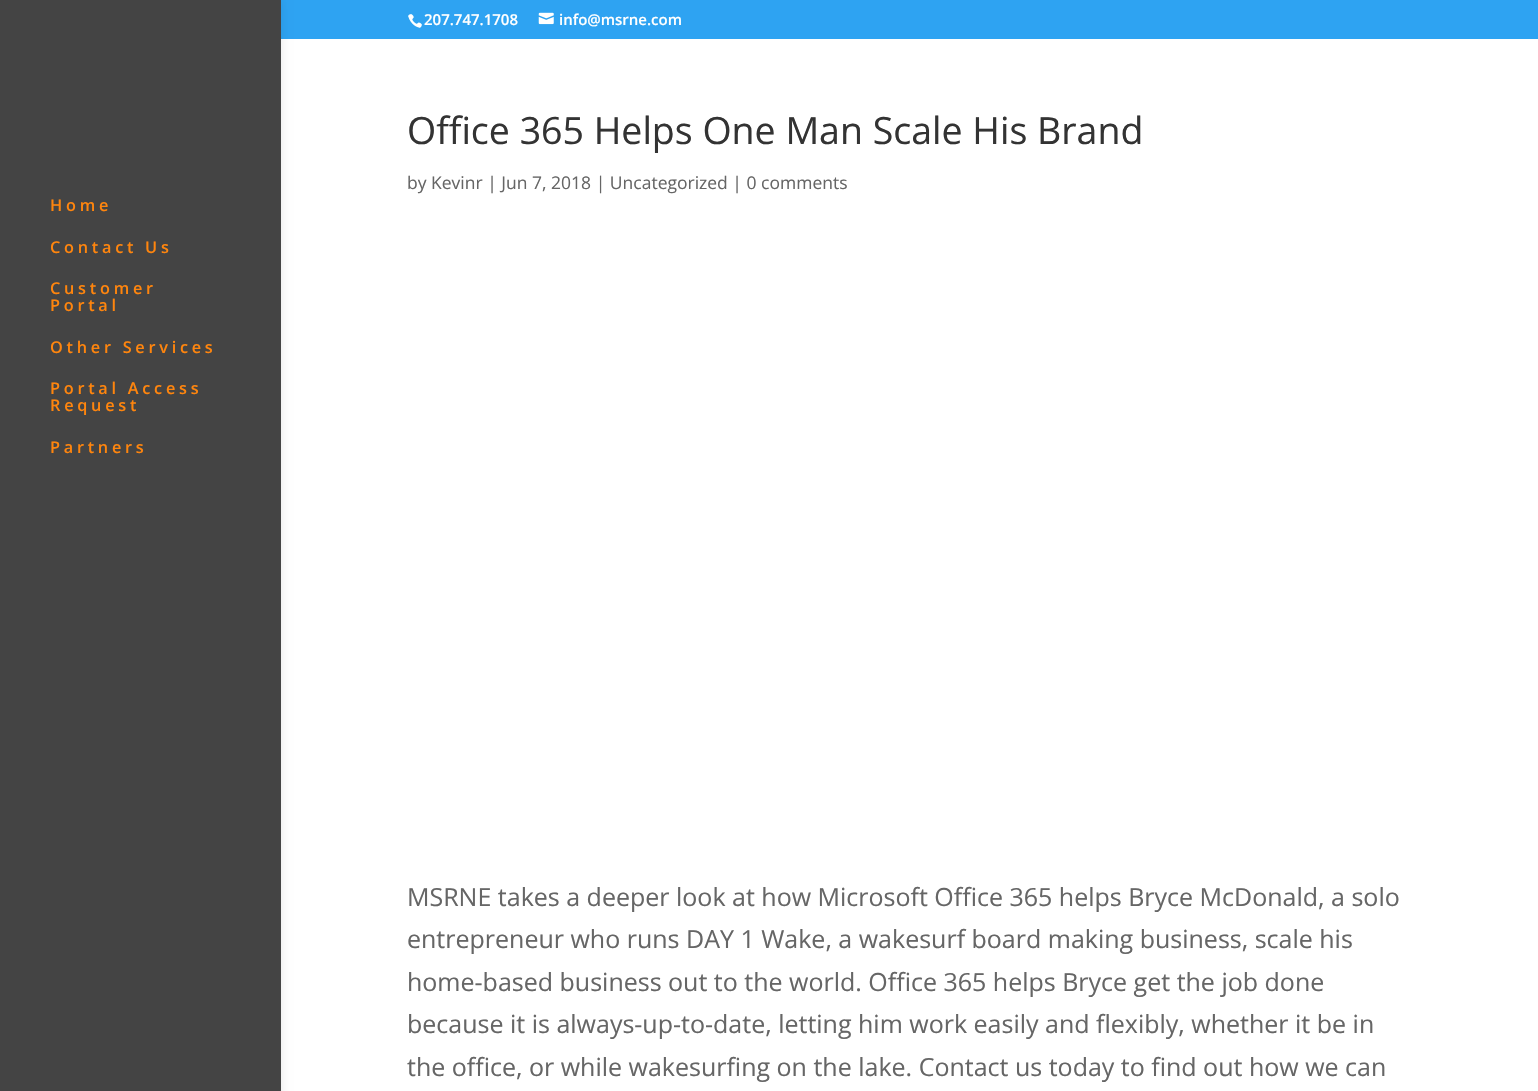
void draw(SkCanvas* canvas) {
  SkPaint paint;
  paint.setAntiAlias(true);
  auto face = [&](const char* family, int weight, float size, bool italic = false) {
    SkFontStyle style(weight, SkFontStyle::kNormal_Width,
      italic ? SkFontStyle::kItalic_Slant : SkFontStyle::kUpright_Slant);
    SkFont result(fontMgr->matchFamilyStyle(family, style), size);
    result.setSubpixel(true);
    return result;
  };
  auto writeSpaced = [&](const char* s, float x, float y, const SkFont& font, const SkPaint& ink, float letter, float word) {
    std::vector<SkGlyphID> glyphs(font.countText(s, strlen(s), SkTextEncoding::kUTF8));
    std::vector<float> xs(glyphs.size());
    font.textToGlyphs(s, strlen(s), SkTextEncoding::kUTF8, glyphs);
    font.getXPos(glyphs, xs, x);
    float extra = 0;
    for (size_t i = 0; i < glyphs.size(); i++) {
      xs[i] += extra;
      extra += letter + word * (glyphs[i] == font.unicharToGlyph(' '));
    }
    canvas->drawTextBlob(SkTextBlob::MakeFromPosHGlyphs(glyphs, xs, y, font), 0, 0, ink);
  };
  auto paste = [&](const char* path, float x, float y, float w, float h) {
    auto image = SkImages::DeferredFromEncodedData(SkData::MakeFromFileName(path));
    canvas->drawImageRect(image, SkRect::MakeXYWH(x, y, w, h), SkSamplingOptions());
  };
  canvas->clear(0xffffffff);
  paint.setColor(0xff2ea3f2);
  canvas->drawRect(SkRect::MakeXYWH(281, 0, 1257, 39), paint);
  paste("img/1.png", 408, 14, 14, 14);
  paste("img/2.png", 538, 12, 16, 13);
  paint.setColor(0x1a000000);
  paint.setMaskFilter(SkMaskFilter::MakeBlur(kNormal_SkBlurStyle, 4.5f));
  canvas->drawRect(SkRect::MakeXYWH(0, 0, 281, 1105), paint);
  paint.setMaskFilter(nullptr);
  paint.setColor(0xff444444);
  canvas->drawRect(SkRect::MakeXYWH(0, 0, 281, 1091), paint);
  auto f0 = face("Open Sans", 600, 15);
  paint.setColor(0xffffffff);
  canvas->drawString("207.747.1708", 424, 25, f0, paint);
  canvas->drawString("info@msrne.com", 559, 25, f0, paint);
  auto f1 = face("Open Sans", 600, 16.25f);
  paint.setColor(0xffff850d);
  {
    const struct { const char* s; float x, y; } items[] = {
      {"Home", 50, 211},
      {"Contact Us", 50, 253},
      {"Customer", 50, 294},
      {"Portal", 50, 311},
      {"Other Services", 50, 353},
      {"Portal Access", 50, 394},
      {"Request", 50, 411},
      {"Partners", 50, 453},
    };
    for (auto [s, x, y] : items) {
      writeSpaced(s, x, y, f1, paint, 3.75f, 0);
    }
  }
  auto f2 = face("Open Sans", 400, 37.5f);
  paint.setColor(0xff333333);
  canvas->drawString("Office 365 Helps One Man Scale His Brand", 407, 144, f2, paint);
  auto f3 = face("Open Sans", 400, 17.5f);
  paint.setColor(0xff666666);
  canvas->drawString("by Kevinr | Jun 7, 2018 | Uncategorized | 0 comments", 407, 189, f3, paint);
  auto f4 = face("Open Sans", 400, 25);
  {
    const struct { const char* s; float x, y; } items[] = {
      {"MSRNE takes a deeper look at how Microsoft Office 365 helps Bryce McDonald, a solo", 407, 906},
      {"entrepreneur who runs DAY 1 Wake, a wakesurf board making business, scale his", 407, 948},
      {"home-based business out to the world. Office 365 helps Bryce get the job done", 407, 991},
      {"because it is always-up-to-date, letting him work easily and flexibly, whether it be in", 407, 1033},
      {"the office, or while wakesurfing on the lake. Contact us today to find out how we can", 407, 1076},
    };
    for (auto [s, x, y] : items) {
      canvas->drawString(s, x, y, f4, paint);
    }
  }
}
